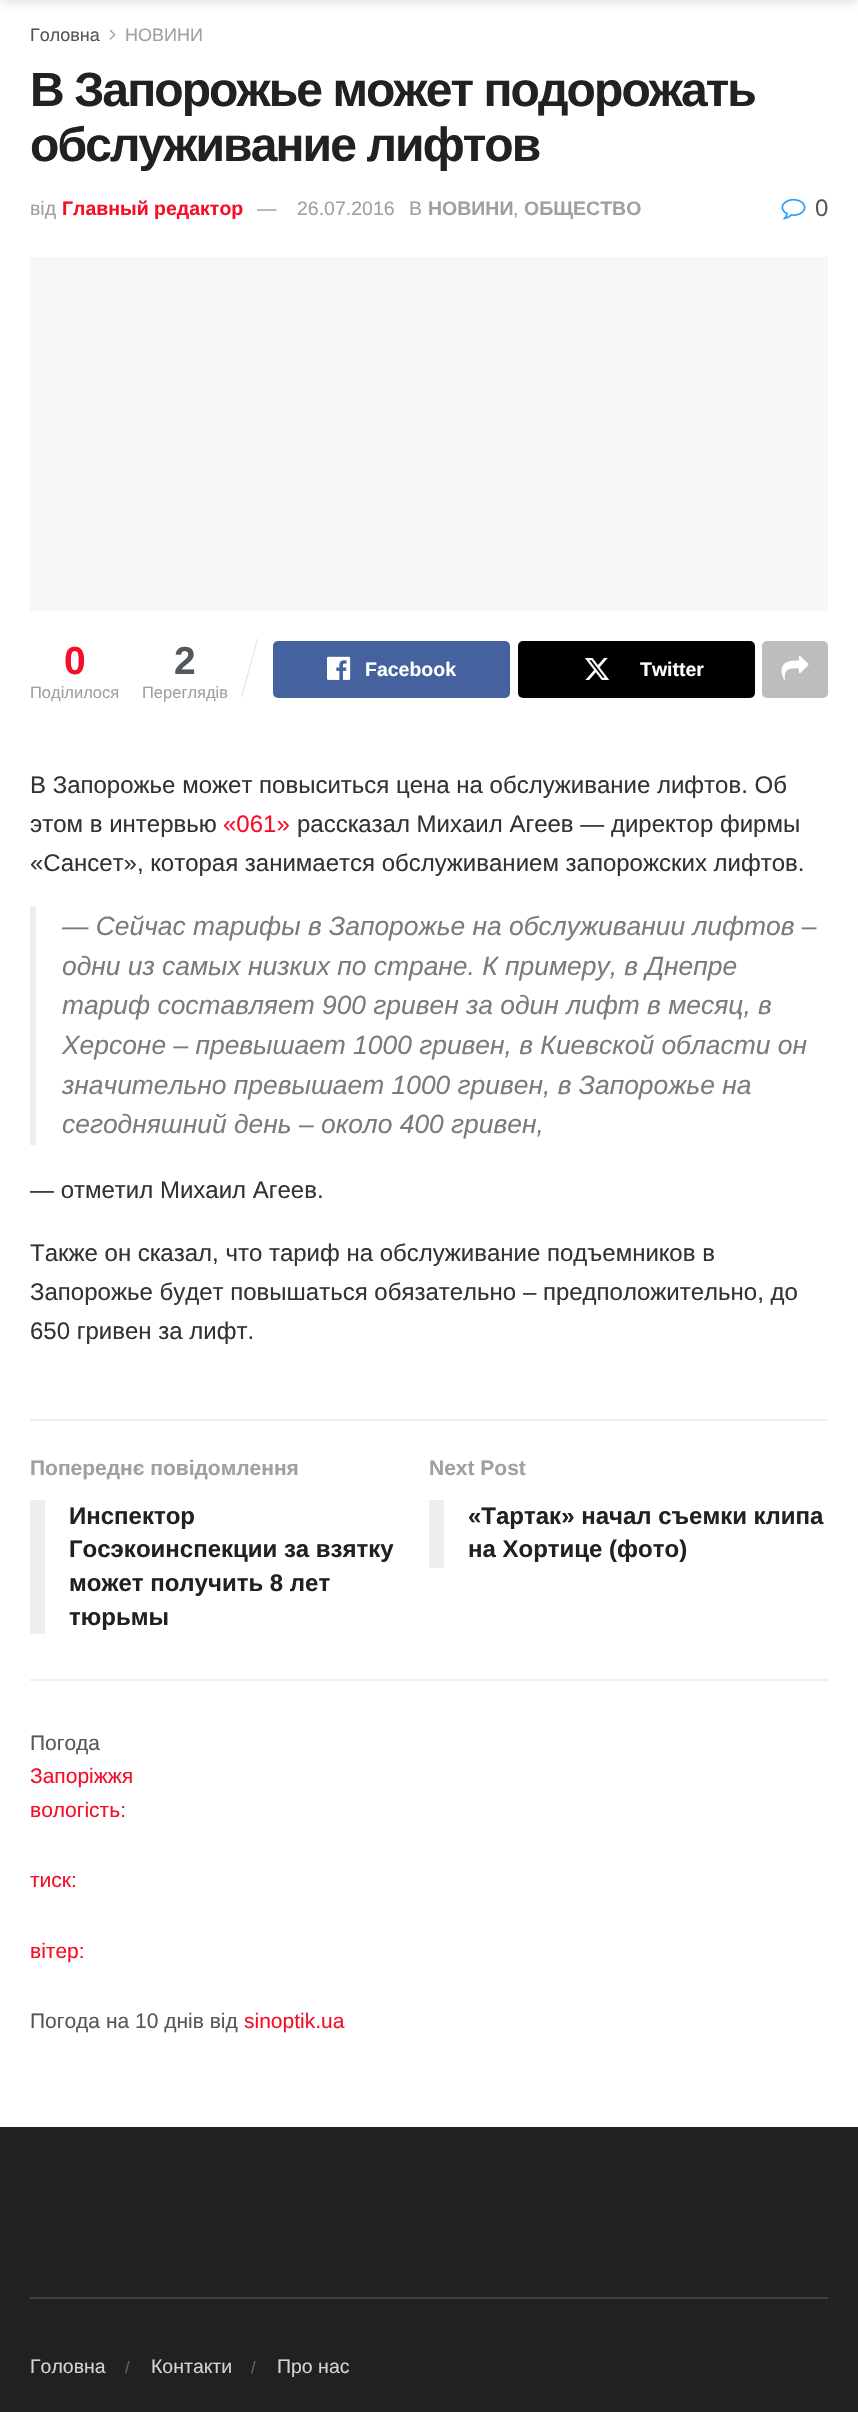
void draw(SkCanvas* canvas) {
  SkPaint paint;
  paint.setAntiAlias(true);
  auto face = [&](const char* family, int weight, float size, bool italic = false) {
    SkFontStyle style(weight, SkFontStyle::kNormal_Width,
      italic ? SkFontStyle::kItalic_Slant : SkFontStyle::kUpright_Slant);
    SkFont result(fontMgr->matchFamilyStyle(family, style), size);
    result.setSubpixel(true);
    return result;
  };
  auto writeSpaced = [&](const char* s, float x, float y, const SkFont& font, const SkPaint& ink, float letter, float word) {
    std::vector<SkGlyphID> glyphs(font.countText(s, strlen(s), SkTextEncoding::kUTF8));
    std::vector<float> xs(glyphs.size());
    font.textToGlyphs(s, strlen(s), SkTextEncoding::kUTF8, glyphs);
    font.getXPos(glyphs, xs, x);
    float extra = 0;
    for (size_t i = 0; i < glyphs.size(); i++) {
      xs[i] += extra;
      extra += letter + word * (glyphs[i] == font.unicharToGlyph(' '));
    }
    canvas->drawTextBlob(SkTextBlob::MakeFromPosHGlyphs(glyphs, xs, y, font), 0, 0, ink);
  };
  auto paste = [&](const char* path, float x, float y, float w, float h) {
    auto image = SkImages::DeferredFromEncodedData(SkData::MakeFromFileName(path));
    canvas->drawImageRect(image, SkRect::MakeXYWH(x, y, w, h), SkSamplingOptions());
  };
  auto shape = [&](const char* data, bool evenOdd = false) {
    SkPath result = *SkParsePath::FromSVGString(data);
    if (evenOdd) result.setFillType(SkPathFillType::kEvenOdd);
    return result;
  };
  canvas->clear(0xffffffff);
  paint.setColor(0x1a000000);
  paint.setMaskFilter(SkMaskFilter::MakeBlur(kNormal_SkBlurStyle, 4.5f));
  canvas->drawRect(SkRect::MakeXYWH(0, -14, 858, 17), paint);
  paint.setMaskFilter(nullptr);
  paste("img/1.png", 109, 29, 7, 11);
  paste("img/2.png", 781, 198, 25, 22);
  paint.setColor(0xfff7f7f7);
  canvas->drawRect(SkRect::MakeXYWH(30, 257, 798, 354), paint);
  paint.setColor(0xffe0e0e0);
  canvas->drawPath(shape("M257 639H258L242 697H241Z"), paint);
  paint.setColor(0xff45629f);
  canvas->drawRoundRect(SkRect::MakeXYWH(273, 641, 237, 57), 5, 5, paint);
  paste("img/3.png", 327, 656, 24, 24);
  paint.setColor(0xff000000);
  canvas->drawRoundRect(SkRect::MakeXYWH(518, 641, 237, 57), 5, 5, paint);
  paste("img/4.png", 585, 658, 25, 22);
  paint.setColor(0xffbdbdbd);
  canvas->drawRoundRect(SkRect::MakeXYWH(762, 641, 66, 57), 5, 5, paint);
  paste("img/5.png", 781, 655, 28, 25);
  {
    const struct { float x, y, w, h; SkColor color; } items[] = {
      {30, 906, 6, 239, 0xffeeeeee},
      {30, 1419, 798, 2, 0xffeeeeee},
      {30, 1679, 798, 2, 0xffeeeeee},
      {30, 1500, 15, 134, 0xffeeeeee},
      {429, 1500, 15, 68, 0xffeeeeee},
      {0, 2127, 858, 285, 0xff212121},
      {30, 2297, 798, 2, 0xff424242},
    };
    for (auto [x, y, w, h, color] : items) {
      paint.setColor(color);
      canvas->drawRect(SkRect::MakeXYWH(x, y, w, h), paint);
    }
  }
  auto f0 = face("Liberation Sans", 400, 18);
  paint.setColor(0xff53585c);
  canvas->drawString("Головна", 30, 41, f0, paint);
  paint.setColor(0xffa0a0a0);
  canvas->drawString("НОВИНИ", 125, 41, f0, paint);
  auto f1 = face("Liberation Sans", 700, 48);
  paint.setColor(0xff212121);
  writeSpaced("В Запорожье может подорожать", 30, 106, f1, paint, -1.9f, 0);
  writeSpaced("обслуживание лифтов", 30, 161, f1, paint, -1.9f, 0);
  auto f2 = face("Liberation Sans", 400, 19.5f);
  paint.setColor(0xffa0a0a0);
  canvas->drawString("від", 30, 215, f2, paint);
  auto f3 = face("Liberation Sans", 700, 19.5f);
  paint.setColor(0xfff70d28);
  canvas->drawString("Главный редактор", 62, 215, f3, paint);
  paint.setColor(0xffa0a0a0);
  {
    const struct { const char* s; float x, y; } items[] = {
      {"—", 257, 215},
      {"26.07.2016", 297, 215},
      {"В", 409, 215},
    };
    for (auto [s, x, y] : items) {
      canvas->drawString(s, x, y, f2, paint);
    }
  }
  canvas->drawString("НОВИНИ", 428, 215, f3, paint);
  canvas->drawString(",", 513, 215, f2, paint);
  canvas->drawString("ОБЩЕСТВО", 524, 215, f3, paint);
  auto f4 = face("Liberation Sans", 400, 24);
  paint.setColor(0xff53585c);
  canvas->drawString("0", 815, 216, f4, paint);
  auto f5 = face("Liberation Sans", 700, 39);
  paint.setColor(0xfff70d28);
  canvas->drawString("0", 64, 674, f5, paint);
  auto f6 = face("Liberation Sans", 400, 16.5f);
  paint.setColor(0xffa0a0a0);
  canvas->drawString("Поділилося", 30, 698, f6, paint);
  paint.setColor(0xff53585c);
  canvas->drawString("2", 174, 674, f5, paint);
  paint.setColor(0xffa0a0a0);
  canvas->drawString("Переглядів", 142, 698, f6, paint);
  paint.setColor(0xffffffff);
  canvas->drawString("Facebook", 365, 676, f3, paint);
  canvas->drawString("Twitter", 640, 676, f3, paint);
  paint.setColor(0xff333333);
  canvas->drawString("В Запорожье может повыситься цена на обслуживание лифтов. Об", 30, 793, f4, paint);
  canvas->drawString("этом в интервью", 30, 832, f4, paint);
  paint.setColor(0xfff70d28);
  canvas->drawString("«061»", 223, 832, f4, paint);
  paint.setColor(0xff333333);
  canvas->drawString("рассказал Михаил Агеев — директор фирмы", 297, 832, f4, paint);
  canvas->drawString("«Сансет», которая занимается обслуживанием запорожских лифтов.", 30, 871, f4, paint);
  auto f7 = face("Liberation Sans", 400, 26.4f, true);
  paint.setColor(0xff7b7b7b);
  {
    const struct { const char* s; float x, y; } items[] = {
      {"— Сейчас тарифы в Запорожье на обслуживании лифтов –", 62, 935},
      {"одни из самых низких по стране. К примеру, в Днепре", 62, 975},
      {"тариф составляет 900 гривен за один лифт в месяц, в", 62, 1014},
      {"Херсоне – превышает 1000 гривен, в Киевской области он", 62, 1054},
      {"значительно превышает 1000 гривен, в Запорожье на", 62, 1094},
      {"сегодняшний день – около 400 гривен,", 62, 1133},
    };
    for (auto [s, x, y] : items) {
      canvas->drawString(s, x, y, f7, paint);
    }
  }
  paint.setColor(0xff333333);
  {
    const struct { const char* s; float x, y; } items[] = {
      {"— отметил Михаил Агеев.", 30, 1198},
      {"Также он сказал, что тариф на обслуживание подъемников в", 30, 1261},
      {"Запорожье будет повышаться обязательно – предположительно, до", 30, 1300},
      {"650 гривен за лифт.", 30, 1339},
    };
    for (auto [s, x, y] : items) {
      canvas->drawString(s, x, y, f4, paint);
    }
  }
  auto f8 = face("Liberation Sans", 700, 21);
  paint.setColor(0xffa0a0a0);
  canvas->drawString("Попереднє повідомлення", 30, 1475, f8, paint);
  auto f9 = face("Liberation Sans", 700, 24);
  paint.setColor(0xff212121);
  {
    const struct { const char* s; float x, y; } items[] = {
      {"Инспектор", 69, 1524},
      {"Госэкоинспекции за взятку", 69, 1557},
      {"может получить 8 лет", 69, 1591},
      {"тюрьмы", 69, 1625},
    };
    for (auto [s, x, y] : items) {
      canvas->drawString(s, x, y, f9, paint);
    }
  }
  paint.setColor(0xffa0a0a0);
  canvas->drawString("Next Post", 429, 1475, f8, paint);
  paint.setColor(0xff212121);
  canvas->drawString("«Тартак» начал съемки клипа", 468, 1524, f9, paint);
  canvas->drawString("на Хортице (фото)", 468, 1557, f9, paint);
  auto f10 = face("Liberation Sans", 400, 21);
  paint.setColor(0xff53585c);
  canvas->drawString("Погода", 30, 1750, f10, paint);
  paint.setColor(0xfff70d28);
  {
    const struct { const char* s; float x, y; } items[] = {
      {"Запоріжжя", 30, 1783},
      {"вологість:", 30, 1817},
      {"тиск:", 30, 1887},
      {"вітер:", 30, 1958},
    };
    for (auto [s, x, y] : items) {
      canvas->drawString(s, x, y, f10, paint);
    }
  }
  paint.setColor(0xff53585c);
  canvas->drawString("Погода на 10 днів від", 30, 2028, f10, paint);
  paint.setColor(0xfff70d28);
  canvas->drawString("sinoptik.ua", 244, 2028, f10, paint);
  paint.setColor(0xffd3d3d3);
  canvas->drawString("Головна", 30, 2373, f2, paint);
  paint.setColor(0xff646464);
  canvas->drawString("/", 125, 2373, f6, paint);
  paint.setColor(0xffd3d3d3);
  canvas->drawString("Контакти", 151, 2373, f2, paint);
  paint.setColor(0xff646464);
  canvas->drawString("/", 251, 2373, f6, paint);
  paint.setColor(0xffd3d3d3);
  canvas->drawString("Про нас", 277, 2373, f2, paint);
}
